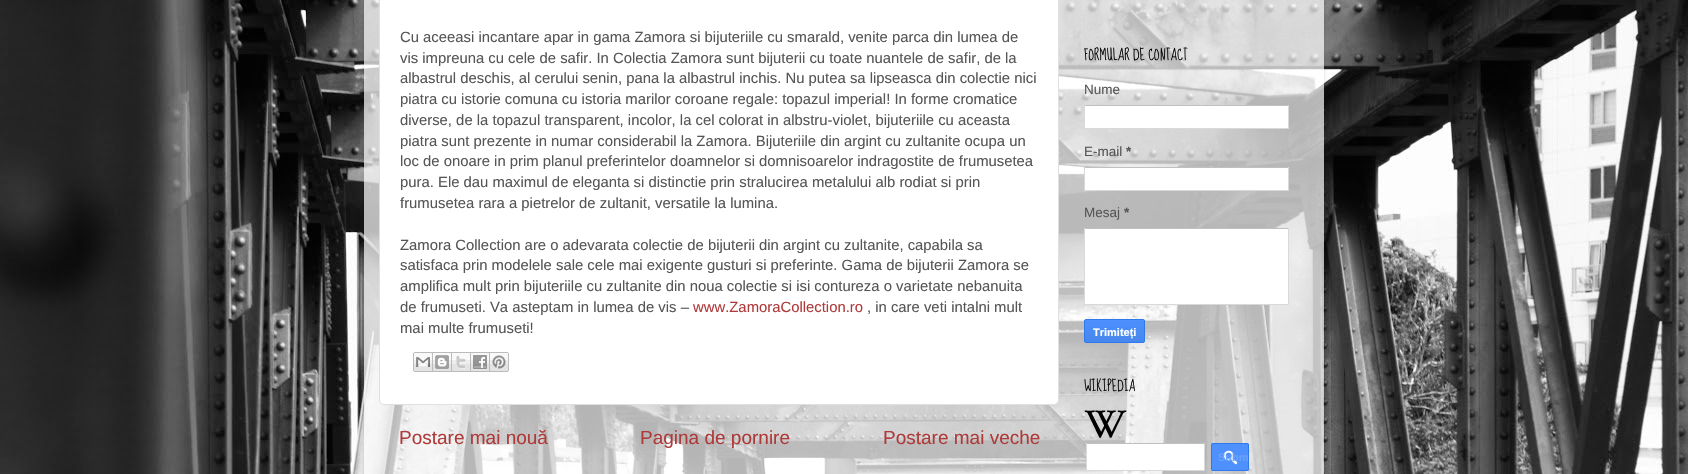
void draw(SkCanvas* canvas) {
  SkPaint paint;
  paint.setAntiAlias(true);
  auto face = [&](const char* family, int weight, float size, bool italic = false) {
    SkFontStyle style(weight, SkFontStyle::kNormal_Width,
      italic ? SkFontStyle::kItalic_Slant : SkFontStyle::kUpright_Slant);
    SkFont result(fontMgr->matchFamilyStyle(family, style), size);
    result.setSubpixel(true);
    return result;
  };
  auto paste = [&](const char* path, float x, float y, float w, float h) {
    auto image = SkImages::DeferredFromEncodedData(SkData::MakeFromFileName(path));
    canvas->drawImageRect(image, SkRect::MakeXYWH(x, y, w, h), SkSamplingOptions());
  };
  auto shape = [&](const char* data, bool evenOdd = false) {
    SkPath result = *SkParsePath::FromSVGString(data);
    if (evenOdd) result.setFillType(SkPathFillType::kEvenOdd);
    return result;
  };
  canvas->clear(0xffffffff);
  paste("img/1.png", 0, 0, 1688, 474);
  canvas->save();
  canvas->clipPath(shape("M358 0H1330V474H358ZM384-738H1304C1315-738 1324-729 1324-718V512H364V-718C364-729 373-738 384-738Z", true), true);
  paint.setColor(0x26000000);
  paint.setMaskFilter(SkMaskFilter::MakeBlur(kNormal_SkBlurStyle, 1.5f));
  canvas->drawRoundRect(SkRect::MakeXYWH(364, -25, 960, 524), 20, 20, paint);
  paint.setMaskFilter(nullptr);
  canvas->restore();
  paint.setColor(0xb3ffffff);
  canvas->drawRect(SkRect::MakeXYWH(364, 0, 960, 474), paint);
  paint.setColor(0xffffffff);
  canvas->drawRoundRect(SkRect::MakeXYWH(379.5f, -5.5f, 679, 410), 4.5f, 4.5f, paint);
  paint.setStroke(true);
  paint.setStrokeWidth(1);
  paint.setColor(0xffe0e0e0);
  canvas->drawRoundRect(SkRect::MakeXYWH(379.5f, -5.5f, 679, 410), 4.5f, 4.5f, paint);
  paste("img/2.png", 413, 352, 20, 20);
  paste("img/3.png", 433, 352, 19, 20);
  paste("img/4.png", 452, 352, 19, 20);
  paste("img/5.png", 471, 352, 19, 20);
  paste("img/6.png", 490, 352, 19, 20);
  paint.setStroke(false);
  {
    const struct { float x, y, w, h; SkColor color; } items[] = {
      {1085, 106, 203, 22, 0xffffffff},
      {1084, 105, 205, 1, 0xffc0c0c0},
      {1288, 105, 1, 24, 0xffd9d9d9},
      {1084, 128, 205, 1, 0xffd9d9d9},
      {1084, 105, 1, 7, 0xffd9d9d9},
      {1085, 168, 203, 22, 0xffffffff},
      {1084, 167, 205, 1, 0xffc0c0c0},
      {1288, 167, 1, 24, 0xffd9d9d9},
      {1084, 190, 205, 1, 0xffd9d9d9},
      {1084, 167, 1, 24, 0xffd9d9d9},
      {1085, 229, 203, 75, 0xffffffff},
      {1084, 228, 205, 1, 0xffc0c0c0},
      {1288, 228, 1, 77, 0xffd9d9d9},
      {1084, 304, 205, 1, 0xffd9d9d9},
      {1084, 228, 1, 77, 0xffd9d9d9},
    };
    for (auto [x, y, w, h, color] : items) {
      paint.setColor(color);
      canvas->drawRect(SkRect::MakeXYWH(x, y, w, h), paint);
    }
  }
  canvas->save();
  canvas->clipPath(shape("M1086 319H1143C1144 319 1145 320 1145 321V341C1145 342 1144 343 1143 343H1086C1085 343 1084 342 1084 341V321C1084 320 1085 319 1086 319Z"), true);
  {
    const SkColor colors[] = {0xff4d90fe, 0xff4787ed};
    const float stops[] = {0, 1};
    const SkPoint ends[] = {{1115, 320}, {1115, 342}};
    paint.setShader(SkGradientShader::MakeLinear(ends, colors, stops, 2, SkTileMode::kClamp));
    paint.setAlpha(255);
  }
  canvas->drawRect(SkRect::MakeXYWH(1084, 320, 61, 22), paint);
  canvas->restore();
  paint.setStroke(true);
  paint.setShader(nullptr);
  paint.setColor(0xff3079ed);
  canvas->drawRoundRect(SkRect::MakeXYWH(1084.5f, 319.5f, 60, 23), 1.5f, 1.5f, paint);
  paste("img/7.png", 1084, 410, 43, 28);
  paint.setStroke(false);
  {
    const struct { float x, y, w, h; SkColor color; } items[] = {
      {1087, 444, 117, 26, 0xffffffff},
      {1086, 443, 119, 1, 0xffc0c0c0},
      {1204, 443, 1, 28, 0xffd9d9d9},
      {1096, 470, 109, 1, 0xffd9d9d9},
      {1086, 443, 1, 28, 0xffd9d9d9},
    };
    for (auto [x, y, w, h, color] : items) {
      paint.setColor(color);
      canvas->drawRect(SkRect::MakeXYWH(x, y, w, h), paint);
    }
  }
  paint.setColor(0xff4d90fe);
  canvas->drawRoundRect(SkRect::MakeXYWH(1211, 443, 38, 28), 2, 2, paint);
  paste("img/8.png", 1223, 450, 15, 15);
  paint.setStroke(true);
  paint.setColor(0xff3079ed);
  canvas->drawRoundRect(SkRect::MakeXYWH(1211.5f, 443.5f, 37, 27), 1.5f, 1.5f, paint);
  auto f0 = face("Liberation Sans", 400, 14.85f);
  paint.setStroke(false);
  paint.setColor(0xff565656);
  {
    const struct { const char* s; float x, y; } items[] = {
      {"Cu aceeasi incantare apar in gama Zamora si bijuteriile cu smarald, venite parca din lumea de", 400, 42},
      {"vis impreuna cu cele de safir. In Colectia Zamora sunt bijuterii cu toate nuantele de safir, de la", 400, 63},
      {"albastrul deschis, al cerului senin, pana la albastrul inchis. Nu putea sa lipseasca din colectie nici", 400, 83},
      {"piatra cu istorie comuna cu istoria marilor coroane regale: topazul imperial! In forme cromatice", 400, 104},
      {"diverse, de la topazul transparent, incolor, la cel colorat in albstru-violet, bijuteriile cu aceasta", 400, 125},
      {"piatra sunt prezente in numar considerabil la Zamora. Bijuteriile din argint cu zultanite ocupa un", 400, 146},
      {"loc de onoare in prim planul preferintelor doamnelor si domnisoarelor indragostite de frumusetea", 400, 166},
      {"pura. Ele dau maximul de eleganta si distinctie prin stralucirea metalului alb rodiat si prin", 400, 187},
      {"frumusetea rara a pietrelor de zultanit, versatile la lumina.", 400, 208},
      {"Zamora Collection are o adevarata colectie de bijuterii din argint cu zultanite, capabila sa", 400, 250},
      {"satisfaca prin modelele sale cele mai exigente gusturi si preferinte. Gama de bijuterii Zamora se", 400, 270},
      {"amplifica mult prin bijuteriile cu zultanite din noua colectie si isi contureza o varietate nebanuita", 400, 291},
      {"de frumuseti. Va asteptam in lumea de vis –", 400, 312},
    };
    for (auto [s, x, y] : items) {
      canvas->drawString(s, x, y, f0, paint);
    }
  }
  paint.setColor(0xffae3a3a);
  canvas->drawString("www.ZamoraCollection.ro", 693, 312, f0, paint);
  paint.setColor(0xff565656);
  canvas->drawString(", in care veti intalni mult", 867, 312, f0, paint);
  canvas->drawString("mai multe frumuseti!", 400, 333, f0, paint);
  auto f1 = face("Liberation Sans", 400, 19);
  paint.setColor(0xffae3a3a);
  {
    const struct { const char* s; float x, y; } items[] = {
      {"Postare mai nouă", 399, 444},
      {"Pagina de pornire", 640, 444},
      {"Postare mai veche", 883, 444},
    };
    for (auto [s, x, y] : items) {
      canvas->drawString(s, x, y, f1, paint);
    }
  }
  auto f2 = face("Sue Ellen Francisco", 400, 13.5f);
  paint.setColor(0xff000000);
  canvas->drawString("FORMULAR DE CONTACT", 1084, 60, f2, paint);
  auto f3 = face("Liberation Sans", 400, 13.5f);
  paint.setColor(0xff565656);
  canvas->drawString("Nume", 1084, 94, f3, paint);
  canvas->drawString("E-mail", 1084, 156, f3, paint);
  auto f4 = face("Liberation Sans", 700, 13.5f);
  canvas->drawString("*", 1126, 156, f4, paint);
  canvas->drawString("Mesaj", 1084, 217, f3, paint);
  canvas->drawString("*", 1124, 217, f4, paint);
  auto f5 = face("Liberation Sans", 700, 11);
  paint.setColor(0xffffffff);
  canvas->drawString("Trimiteți", 1093, 336, f5, paint);
  paint.setColor(0xff000000);
  canvas->drawString("WIKIPEDIA", 1084, 391, f2, paint);
  paint.setColor(0xff68a1fe);
  canvas->drawString("Subm", 1218, 461, f5, paint);
}
